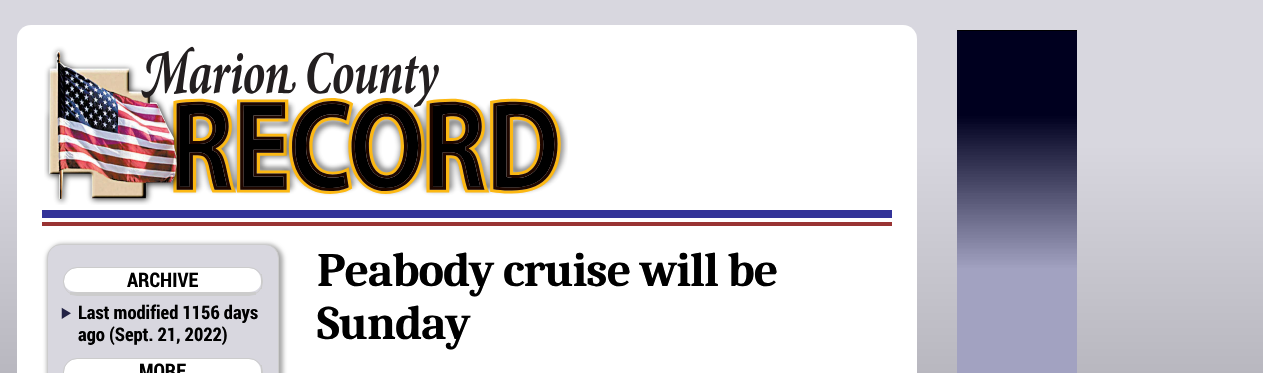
void draw(SkCanvas* canvas) {
  SkPaint paint;
  paint.setAntiAlias(true);
  auto face = [&](const char* family, int weight, float size, bool italic = false) {
    SkFontStyle style(weight, SkFontStyle::kNormal_Width,
      italic ? SkFontStyle::kItalic_Slant : SkFontStyle::kUpright_Slant);
    SkFont result(fontMgr->matchFamilyStyle(family, style), size);
    result.setSubpixel(true);
    return result;
  };
  auto writeSpaced = [&](const char* s, float x, float y, const SkFont& font, const SkPaint& ink, float letter, float word) {
    std::vector<SkGlyphID> glyphs(font.countText(s, strlen(s), SkTextEncoding::kUTF8));
    std::vector<float> xs(glyphs.size());
    font.textToGlyphs(s, strlen(s), SkTextEncoding::kUTF8, glyphs);
    font.getXPos(glyphs, xs, x);
    float extra = 0;
    for (size_t i = 0; i < glyphs.size(); i++) {
      xs[i] += extra;
      extra += letter + word * (glyphs[i] == font.unicharToGlyph(' '));
    }
    canvas->drawTextBlob(SkTextBlob::MakeFromPosHGlyphs(glyphs, xs, y, font), 0, 0, ink);
  };
  auto paste = [&](const char* path, float x, float y, float w, float h) {
    auto image = SkImages::DeferredFromEncodedData(SkData::MakeFromFileName(path));
    canvas->drawImageRect(image, SkRect::MakeXYWH(x, y, w, h), SkSamplingOptions());
  };
  auto shape = [&](const char* data, bool evenOdd = false) {
    SkPath result = *SkParsePath::FromSVGString(data);
    if (evenOdd) result.setFillType(SkPathFillType::kEvenOdd);
    return result;
  };
  canvas->clear(0xffffffff);
  {
    const SkColor colors[] = {0xffd8d7df, 0xff38373f};
    const float stops[] = {0.1f, 0.9f};
    const SkPoint ends[] = {{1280, 0}, {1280, 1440}};
    paint.setShader(SkGradientShader::MakeLinear(ends, colors, stops, 2, SkTileMode::kClamp));
    paint.setAlpha(255);
  }
  canvas->drawRect(SkRect::MakeXYWH(0, 0, 1263, 373), paint);
  paint.setShader(nullptr);
  paint.setColor(0xffffffff);
  canvas->drawRoundRect(SkRect::MakeXYWH(17, 25, 900, 260), 14, 14, paint);
  paste("img/1.png", 44, 46, 524, 159);
  paint.setColor(0xff333399);
  canvas->drawRect(SkRect::MakeXYWH(42, 210, 850, 8), paint);
  paint.setColor(0xff993333);
  canvas->drawRect(SkRect::MakeXYWH(42, 222, 850, 4), paint);
  paint.setColor(0xffffffff);
  canvas->drawRoundRect(SkRect::MakeXYWH(17, 234, 900, 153), 14, 14, paint);
  paint.setColor(0xffaaaaaa);
  paint.setMaskFilter(SkMaskFilter::MakeBlur(kNormal_SkBlurStyle, 2));
  canvas->drawRoundRect(SkRect::MakeXYWH(47, 244, 236, 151), 16, 16, paint);
  paint.setMaskFilter(nullptr);
  paint.setColor(0xffd8d7df);
  canvas->drawRoundRect(SkRect::MakeXYWH(47.5f, 244.5f, 231, 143), 13.5f, 13.5f, paint);
  paint.setStroke(true);
  paint.setStrokeWidth(1);
  paint.setColor(0xffcccccc);
  canvas->drawRoundRect(SkRect::MakeXYWH(47.5f, 244.5f, 231, 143), 13.5f, 13.5f, paint);
  paint.setStroke(false);
  paint.setColor(0xffffffff);
  canvas->drawPath(shape("M77 268H249C256 268 261 274 261 281V282C261 288 256 292 249 292H77C70 292 64 288 64 282V281C64 274 70 268 77 268Z"), paint);
  paint.setStroke(true);
  paint.setColor(0xffcccccc);
  canvas->drawRoundRect(SkRect::MakeXYWH(63.5f, 267.5f, 199, 28), 13.5f, 13.5f, paint);
  paint.setStroke(false);
  canvas->drawRect(SkRect::MakeXYWH(261, 274, 1, 15), paint);
  canvas->drawRect(SkRect::MakeXYWH(70, 292, 186, 3), paint);
  paste("img/2.png", 61, 307, 10, 12);
  paint.setColor(0xffffffff);
  canvas->drawPath(shape("M77 359H249C256 359 261 365 261 372V373C261 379 256 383 249 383H77C70 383 64 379 64 373V372C64 365 70 359 77 359Z"), paint);
  paint.setStroke(true);
  paint.setColor(0xffcccccc);
  canvas->drawRoundRect(SkRect::MakeXYWH(63.5f, 358.5f, 199, 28), 13.5f, 13.5f, paint);
  paint.setStroke(false);
  canvas->drawRect(SkRect::MakeXYWH(261, 365, 1, 8), paint);
  paste("img/3.png", 957, 30, 120, 343);
  auto f0 = face("Roboto Condensed", 700, 20);
  paint.setColor(0xff000000);
  canvas->drawString("ARCHIVE", 127, 287, f0, paint);
  auto f1 = face("Roboto Condensed", 700, 18.75f);
  canvas->drawString("Last modified 1156 days", 78, 319, f1, paint);
  canvas->drawString("ago (Sept. 21, 2022)", 78, 341, f1, paint);
  canvas->drawString("MORE", 139, 378, f0, paint);
  auto f2 = face("Caladea", 700, 48);
  writeSpaced("Peabody cruise will be", 317, 286, f2, paint, -1, 0);
  writeSpaced("Sunday", 317, 339, f2, paint, -1, 0);
}
